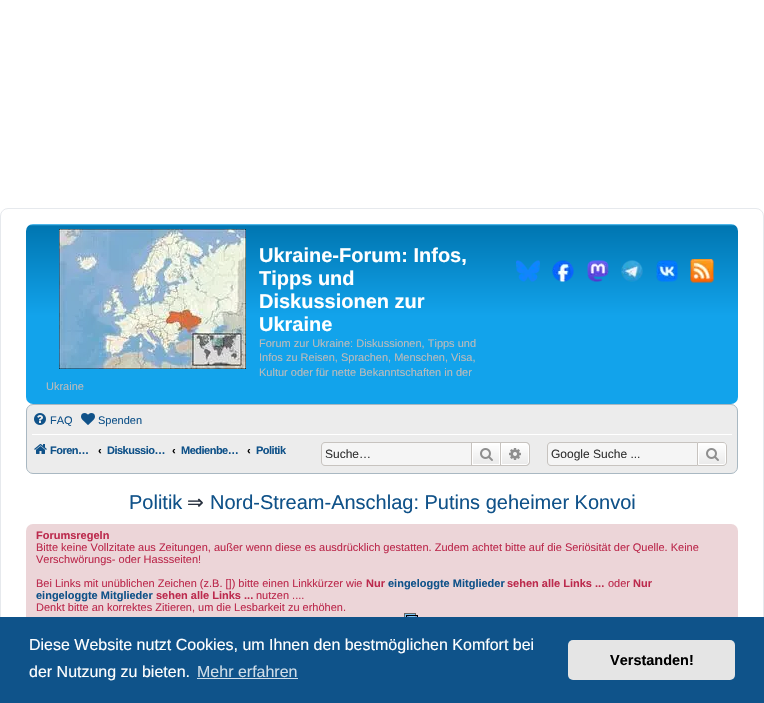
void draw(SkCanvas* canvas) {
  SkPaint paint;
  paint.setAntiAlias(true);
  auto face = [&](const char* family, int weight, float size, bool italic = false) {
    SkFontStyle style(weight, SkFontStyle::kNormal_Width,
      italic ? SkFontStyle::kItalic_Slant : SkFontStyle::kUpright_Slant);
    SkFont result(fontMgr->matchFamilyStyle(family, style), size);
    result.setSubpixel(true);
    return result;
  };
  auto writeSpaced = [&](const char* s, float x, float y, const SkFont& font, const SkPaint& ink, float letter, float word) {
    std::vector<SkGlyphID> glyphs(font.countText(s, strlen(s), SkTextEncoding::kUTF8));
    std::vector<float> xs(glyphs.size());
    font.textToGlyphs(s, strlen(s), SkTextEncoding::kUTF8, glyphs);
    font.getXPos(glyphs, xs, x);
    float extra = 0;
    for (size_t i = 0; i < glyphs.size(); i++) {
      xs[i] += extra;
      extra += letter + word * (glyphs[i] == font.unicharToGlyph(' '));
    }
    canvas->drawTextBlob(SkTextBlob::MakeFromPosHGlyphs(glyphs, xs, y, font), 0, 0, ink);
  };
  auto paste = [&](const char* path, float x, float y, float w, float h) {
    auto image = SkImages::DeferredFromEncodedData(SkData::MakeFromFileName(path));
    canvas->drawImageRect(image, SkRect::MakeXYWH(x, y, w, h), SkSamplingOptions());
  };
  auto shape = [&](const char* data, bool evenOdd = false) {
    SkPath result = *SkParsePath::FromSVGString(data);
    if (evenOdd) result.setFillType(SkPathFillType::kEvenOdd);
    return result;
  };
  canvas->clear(0xffffffff);
  paint.setStroke(true);
  paint.setStrokeWidth(1);
  paint.setColor(0xffe6e9ed);
  canvas->drawRoundRect(SkRect::MakeXYWH(0.5f, 208.5f, 763, 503), 7.5f, 7.5f, paint);
  paint.setStroke(false);
  {
    const SkColor colors[] = {0xff6aceff, 0xff0076b1, 0xff12a3eb, 0xff12a3eb};
    const float stops[] = {0, 0.01f, 0.51f, 1};
    const SkPoint ends[] = {{382, 224}, {382, 404}};
    paint.setShader(SkGradientShader::MakeLinear(ends, colors, stops, 4, SkTileMode::kClamp));
    paint.setAlpha(255);
  }
  canvas->drawRoundRect(SkRect::MakeXYWH(26, 224, 712, 180), 7, 7, paint);
  paste("img/1.png", 59, 229, 187, 140);
  paste("img/2.png", 516, 260, 24, 22);
  paste("img/3.png", 552, 260, 22, 22);
  paste("img/4.png", 587, 260, 23, 22);
  paste("img/5.png", 620, 260, 23, 22);
  paste("img/6.png", 656, 260, 22, 22);
  paste("img/7.png", 690, 259, 24, 24);
  paint.setShader(nullptr);
  paint.setColor(0xffececec);
  canvas->drawRoundRect(SkRect::MakeXYWH(26.5f, 404.5f, 711, 69), 6.5f, 6.5f, paint);
  paint.setStroke(true);
  paint.setColor(0xffa9b8c2);
  canvas->drawRoundRect(SkRect::MakeXYWH(26.5f, 404.5f, 711, 69), 6.5f, 6.5f, paint);
  paste("img/8.png", 34, 413, 12, 12);
  paste("img/9.png", 81, 413, 14, 12);
  paint.setStroke(false);
  paint.setColor(0xffffffff);
  canvas->drawRect(SkRect::MakeXYWH(32, 434, 700, 1), paint);
  paste("img/10.png", 34, 444, 13, 10);
  paint.setColor(0xfff5f5f5);
  canvas->drawPath(shape("M325 443H471V465H325C323.5 465 322 463.5 322 462V446C322 444.5 323.5 443 325 443Z"), paint);
  paint.setColor(0xffc7c3bf);
  canvas->drawPath(shape("M325 442H471V466H325C323 466 321 464 321 462V446C321 444 323 442 325 442ZM325 443H471V465H325C323 465 322 464 322 462V446C322 444 323 443 325 443Z", true), paint);
  {
    const SkColor colors[] = {0xffffffff, 0xffe9e9e9};
    const float stops[] = {0, 1};
    const SkPoint ends[] = {{486, 443}, {486, 465}};
    paint.setShader(SkGradientShader::MakeLinear(ends, colors, stops, 2, SkTileMode::kClamp));
    paint.setAlpha(255);
  }
  canvas->drawRect(SkRect::MakeXYWH(473, 444, 26, 16), paint);
  paint.setStroke(true);
  paint.setShader(nullptr);
  paint.setColor(0xffffffff);
  canvas->drawRect(SkRect::MakeXYWH(472.5f, 443.5f, 27, 21), paint);
  paint.setColor(0xffc7c3bf);
  canvas->drawRect(SkRect::MakeXYWH(471.5f, 442.5f, 29, 23), paint);
  paste("img/11.png", 480, 448, 13, 13);
  paint.setStroke(false);
  {
    const SkColor colors[] = {0xffffffff, 0xffe9e9e9};
    const float stops[] = {0, 1};
    const SkPoint ends[] = {{515, 443}, {515, 465}};
    paint.setShader(SkGradientShader::MakeLinear(ends, colors, stops, 2, SkTileMode::kClamp));
    paint.setAlpha(255);
  }
  canvas->drawPath(shape("M501.5 443.5H526C527.5 443.5 528.5 444.5 528.5 446V462C528.5 463.5 527.5 464.5 526 464.5H501.5Z"), paint);
  paint.setStroke(true);
  paint.setShader(nullptr);
  paint.setColor(0xffffffff);
  canvas->drawPath(shape("M501.5 443.5H526C527.5 443.5 528.5 444.5 528.5 446V462C528.5 463.5 527.5 464.5 526 464.5H501.5Z"), paint);
  paint.setStroke(false);
  paint.setColor(0xffc7c3bf);
  canvas->drawPath(shape("M501 442H526C528 442 530 444 530 446V462C530 464 528 466 526 466H501ZM501 443H526C527.5 443 529 444.5 529 446V462C529 463.5 527.5 465 526 465H501Z", true), paint);
  paste("img/12.png", 509, 448, 12, 12);
  paint.setColor(0xfff5f5f5);
  canvas->drawPath(shape("M551 443H697V465H551C549.5 465 548 463.5 548 462V446C548 444.5 549.5 443 551 443Z"), paint);
  paint.setColor(0xffc7c3bf);
  canvas->drawPath(shape("M551 442H697V466H551C549 466 547 464 547 462V446C547 444 549 442 551 442ZM551 443H697V465H551C549 465 548 464 548 462V446C548 444 549 443 551 443Z", true), paint);
  canvas->save();
  canvas->clipPath(shape("M697 442H723C725 442 727 444 727 446V462C727 464 725 466 723 466H697Z"), true);
  {
    const SkColor colors[] = {0xffffffff, 0xffe9e9e9};
    const float stops[] = {0, 1};
    const SkPoint ends[] = {{712, 443}, {712, 465}};
    paint.setShader(SkGradientShader::MakeLinear(ends, colors, stops, 2, SkTileMode::kClamp));
    paint.setAlpha(255);
  }
  canvas->drawRect(SkRect::MakeXYWH(699, 443, 28, 22), paint);
  canvas->restore();
  paint.setStroke(true);
  paint.setShader(nullptr);
  paint.setColor(0xffffffff);
  canvas->drawPath(shape("M698.5 443.5H723C724.5 443.5 725.5 444.5 725.5 446V462C725.5 463.5 724.5 464.5 723 464.5H698.5Z"), paint);
  paint.setColor(0xffc7c3bf);
  canvas->drawPath(shape("M697.5 442.5H723C725 442.5 726.5 444 726.5 446V462C726.5 464 725 465.5 723 465.5H697.5Z"), paint);
  paste("img/11.png", 706, 448, 13, 13);
  paint.setStroke(false);
  paint.setColor(0xffecd5d8);
  canvas->drawRoundRect(SkRect::MakeXYWH(26, 524, 712, 156), 7, 7, paint);
  paste("img/13.png", 404, 613, 14, 4);
  paint.setColor(0xff0f538a);
  canvas->drawRect(SkRect::MakeXYWH(0, 617, 764, 86), paint);
  paint.setColor(0xffcfdde8);
  canvas->drawRect(SkRect::MakeXYWH(197, 678, 101, 1), paint);
  paint.setColor(0xffe5e5e5);
  canvas->drawRoundRect(SkRect::MakeXYWH(568, 640, 167, 40), 5, 5, paint);
  auto f0 = face("Liberation Sans", 700, 20);
  paint.setColor(0xffffffff);
  {
    const struct { const char* s; float x, y; } items[] = {
      {"Ukraine-Forum: Infos,", 259, 262},
      {"Tipps und", 259, 285},
      {"Diskussionen zur", 259, 308},
      {"Ukraine", 259, 331},
    };
    for (auto [s, x, y] : items) {
      canvas->drawString(s, x, y, f0, paint);
    }
  }
  auto f1 = face("Liberation Sans", 400, 11);
  paint.setColor(0xffbbbbbb);
  {
    const struct { const char* s; float x, y; } items[] = {
      {"Forum zur Ukraine: Diskussionen, Tipps und", 259, 347},
      {"Infos zu Reisen, Sprachen, Menschen, Visa,", 259, 361},
      {"Kultur oder für nette Bekanntschaften in der", 259, 376},
      {"Ukraine", 46, 390},
    };
    for (auto [s, x, y] : items) {
      canvas->drawString(s, x, y, f1, paint);
    }
  }
  paint.setColor(0xff105289);
  canvas->drawString("FAQ", 50, 424, f1, paint);
  canvas->drawString("Spenden", 98, 424, f1, paint);
  auto f2 = face("Liberation Sans", 700, 11);
  writeSpaced("Foren…", 50, 454, f2, paint, -0.5f, 0);
  paint.setColor(0xff000000);
  canvas->drawString("‹", 98, 454, f2, paint);
  paint.setColor(0xff105289);
  writeSpaced("Diskussio…", 107, 454, f2, paint, -0.5f, 0);
  paint.setColor(0xff000000);
  canvas->drawString("‹", 172, 454, f2, paint);
  paint.setColor(0xff105289);
  writeSpaced("Medienbe…", 181, 454, f2, paint, -0.5f, 0);
  paint.setColor(0xff000000);
  canvas->drawString("‹", 247, 454, f2, paint);
  paint.setColor(0xff105289);
  writeSpaced("Politik", 256, 454, f2, paint, -0.5f, 0);
  auto f3 = face("Liberation Sans", 400, 12);
  paint.setColor(0xff333333);
  canvas->drawString("Suche…", 325, 458, f3, paint);
  canvas->drawString("Google Suche ...", 551, 458, f3, paint);
  auto f4 = face("Liberation Sans", 400, 20);
  paint.setColor(0xff105289);
  canvas->drawString("Politik", 129, 509, f4, paint);
  auto f5 = face("DejaVu Sans", 400, 20);
  paint.setColor(0xff28313f);
  canvas->drawString("⇒", 187, 509, f5, paint);
  paint.setColor(0xff105289);
  canvas->drawString("Nord-Stream-Anschlag: Putins geheimer Konvoi", 210, 509, f4, paint);
  paint.setColor(0xffbc2a4d);
  canvas->drawString("Forumsregeln", 36, 539, f2, paint);
  {
    const struct { const char* s; float x, y; } items[] = {
      {"Bitte keine Vollzitate aus Zeitungen, außer wenn diese es ausdrücklich gestatten. Zudem achtet bitte auf die Seriösität der Quelle. Keine", 36, 551},
      {"Verschwörungs- oder Hassseiten!", 36, 563},
      {"Bei Links mit unüblichen Zeichen (z.B. []) bitte einen Linkkürzer wie", 36, 587},
    };
    for (auto [s, x, y] : items) {
      canvas->drawString(s, x, y, f1, paint);
    }
  }
  canvas->drawString("Nur", 633, 587, f2, paint);
  paint.setColor(0xff105289);
  canvas->drawString("eingeloggte Mitglieder", 36, 599, f2, paint);
  paint.setColor(0xffbc2a4d);
  canvas->drawString("sehen alle Links ...", 156, 599, f2, paint);
  canvas->drawString("Nur", 366, 587, f2, paint);
  paint.setColor(0xff105289);
  canvas->drawString("eingeloggte Mitglieder", 388, 587, f2, paint);
  paint.setColor(0xffbc2a4d);
  canvas->drawString("sehen alle Links ...", 507, 587, f2, paint);
  {
    const struct { const char* s; float x, y; } items[] = {
      {"oder", 608, 587},
      {"nutzen ....", 256, 599},
      {"Denkt bitte an korrektes Zitieren, um die Lesbarkeit zu erhöhen.", 36, 611},
    };
    for (auto [s, x, y] : items) {
      canvas->drawString(s, x, y, f1, paint);
    }
  }
  auto f6 = face("Liberation Sans", 400, 16);
  paint.setColor(0xffffffff);
  canvas->drawString("Diese Website nutzt Cookies, um Ihnen den bestmöglichen Komfort bei", 29, 650, f6, paint);
  canvas->drawString("der Nutzung zu bieten.", 29, 677, f6, paint);
  paint.setColor(0xffcfdde8);
  canvas->drawString("Mehr erfahren", 197, 677, f6, paint);
  auto f7 = face("Liberation Sans", 700, 14.5f);
  paint.setColor(0xff000000);
  canvas->drawString("Verstanden!", 610, 665, f7, paint);
}
